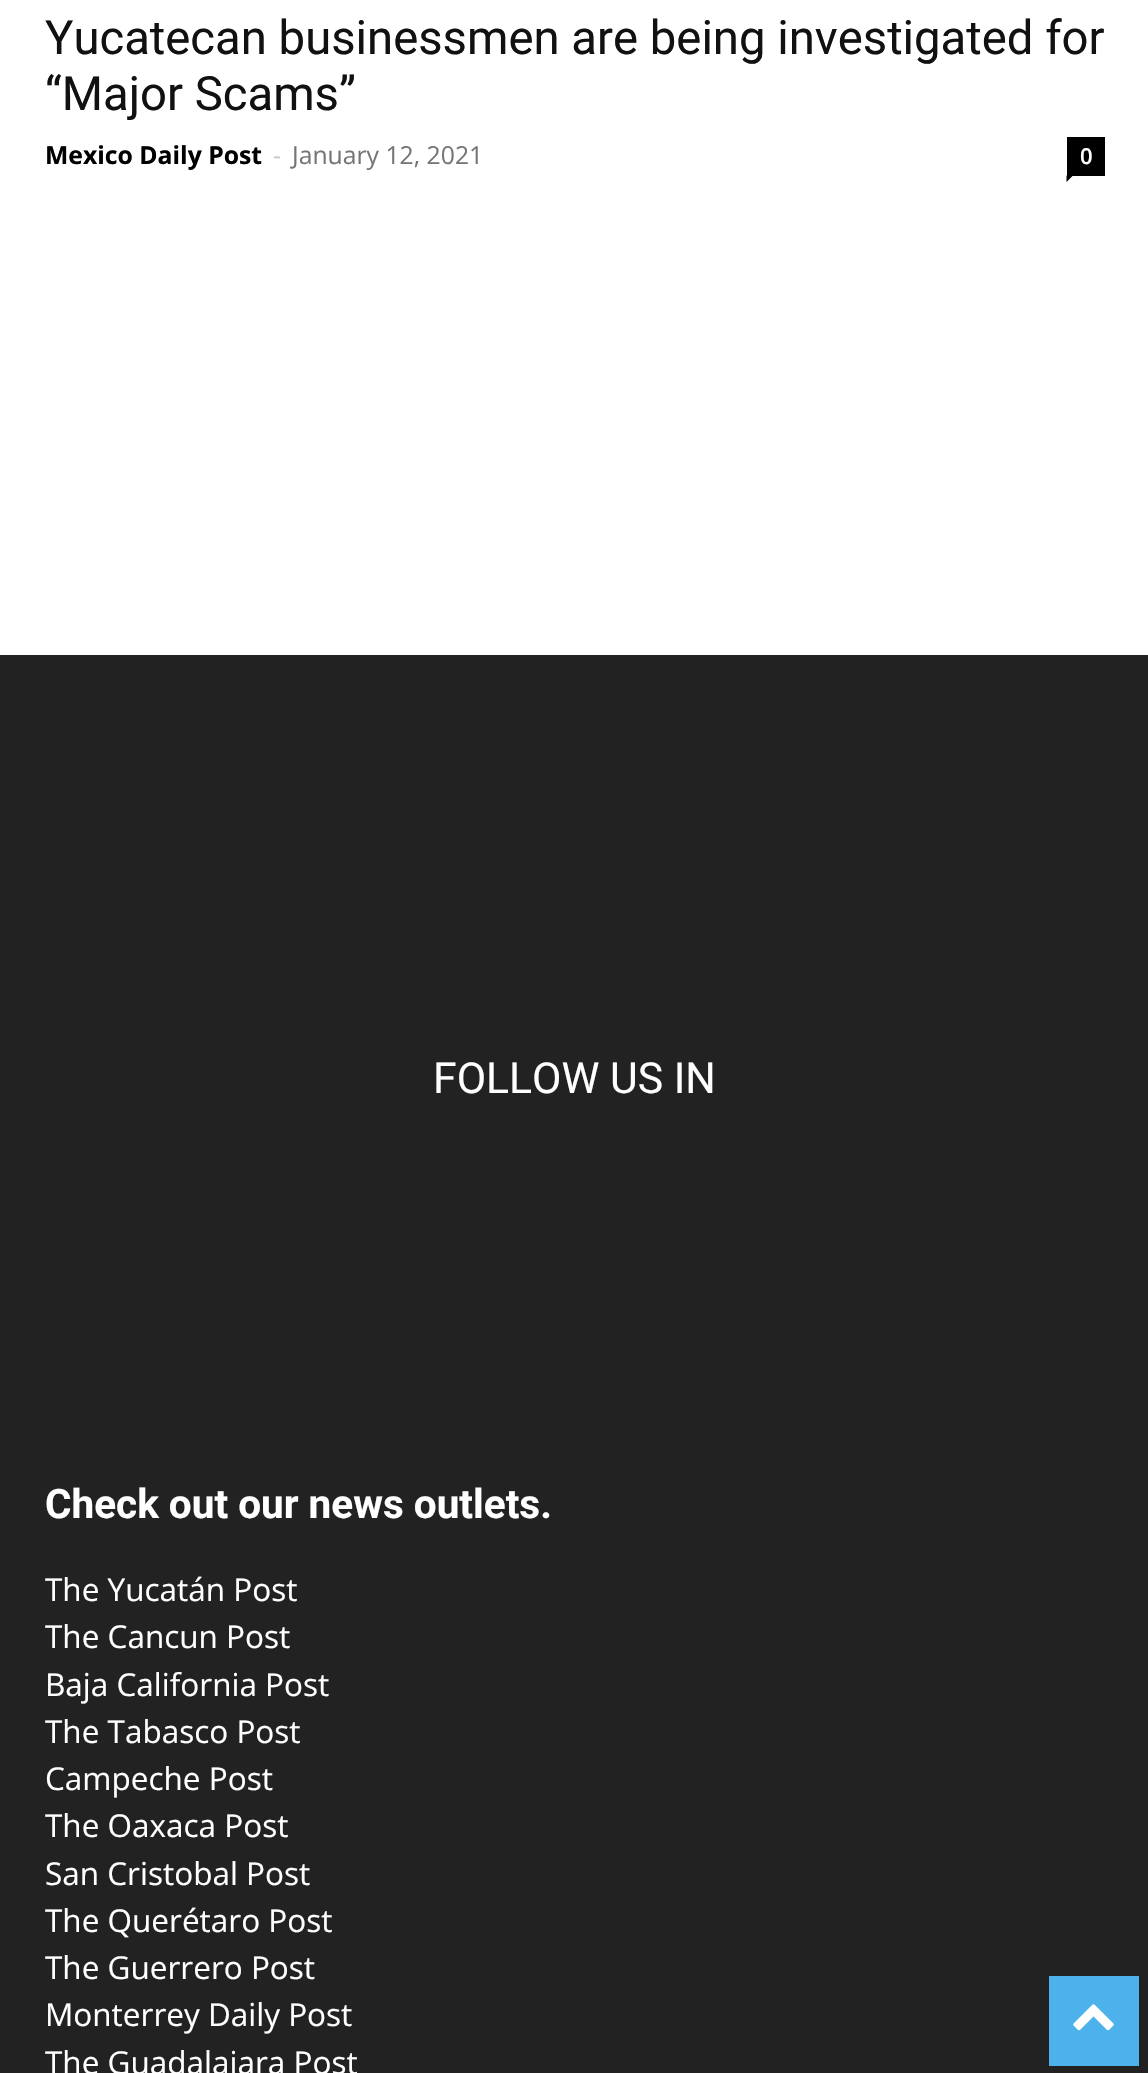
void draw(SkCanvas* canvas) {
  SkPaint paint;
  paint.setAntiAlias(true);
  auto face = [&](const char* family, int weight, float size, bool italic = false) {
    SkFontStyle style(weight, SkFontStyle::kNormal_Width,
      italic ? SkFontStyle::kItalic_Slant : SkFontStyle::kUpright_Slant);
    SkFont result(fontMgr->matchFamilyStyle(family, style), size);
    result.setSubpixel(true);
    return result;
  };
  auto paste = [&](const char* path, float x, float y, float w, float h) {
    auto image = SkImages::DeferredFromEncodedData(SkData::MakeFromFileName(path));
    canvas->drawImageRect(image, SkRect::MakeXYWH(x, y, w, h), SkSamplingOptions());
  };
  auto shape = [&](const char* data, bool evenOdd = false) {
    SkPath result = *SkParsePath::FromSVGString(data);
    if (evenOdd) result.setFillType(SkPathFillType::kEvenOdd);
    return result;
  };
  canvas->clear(0xffffffff);
  paint.setColor(0xff000000);
  canvas->drawRect(SkRect::MakeXYWH(1067, 137, 38, 39), paint);
  canvas->drawPath(shape("M1066.5 175.5H1073L1066.5 182Z"), paint);
  paint.setColor(0xff222222);
  canvas->drawRect(SkRect::MakeXYWH(0, 655, 1148, 1418), paint);
  paint.setColor(0xff4db2ec);
  canvas->drawRect(SkRect::MakeXYWH(1049, 1976, 90, 90), paint);
  paste("img/1.png", 1073, 2004, 41, 27);
  auto f0 = face("Roboto", 400, 47.25f);
  paint.setColor(0xff111111);
  canvas->drawString("Yucatecan businessmen are being investigated for", 45, 54, f0, paint);
  canvas->drawString("“Major Scams”", 45, 110, f0, paint);
  auto f1 = face("Open Sans", 700, 24.75f);
  paint.setColor(0xff000000);
  canvas->drawString("Mexico Daily Post", 45, 164, f1, paint);
  auto f2 = face("Open Sans", 400, 24.75f);
  paint.setColor(0xffcccccc);
  canvas->drawString("-", 273, 164, f2, paint);
  paint.setColor(0xff767676);
  canvas->drawString("January 12, 2021", 292, 164, f2, paint);
  auto f3 = face("Open Sans", 600, 22);
  paint.setColor(0xffffffff);
  canvas->drawString("0", 1080, 164, f3, paint);
  auto f4 = face("Roboto", 400, 42.75f);
  canvas->drawString("FOLLOW US IN", 433, 1093, f4, paint);
  auto f5 = face("Roboto", 700, 40.5f);
  canvas->drawString("Check out our news outlets.", 45, 1518, f5, paint);
  auto f6 = face("Open Sans", 400, 31.5f);
  {
    const struct { const char* s; float x, y; } items[] = {
      {"The Yucatán Post", 45, 1601},
      {"The Cancun Post", 45, 1648},
      {"Baja California Post", 45, 1696},
      {"The Tabasco Post", 45, 1743},
      {"Campeche Post", 45, 1790},
      {"The Oaxaca Post", 45, 1837},
      {"San Cristobal Post", 45, 1885},
      {"The Querétaro Post", 45, 1932},
      {"The Guerrero Post", 45, 1979},
      {"Monterrey Daily Post", 45, 2026},
      {"The Guadalajara Post", 45, 2074},
    };
    for (auto [s, x, y] : items) {
      canvas->drawString(s, x, y, f6, paint);
    }
  }
}
